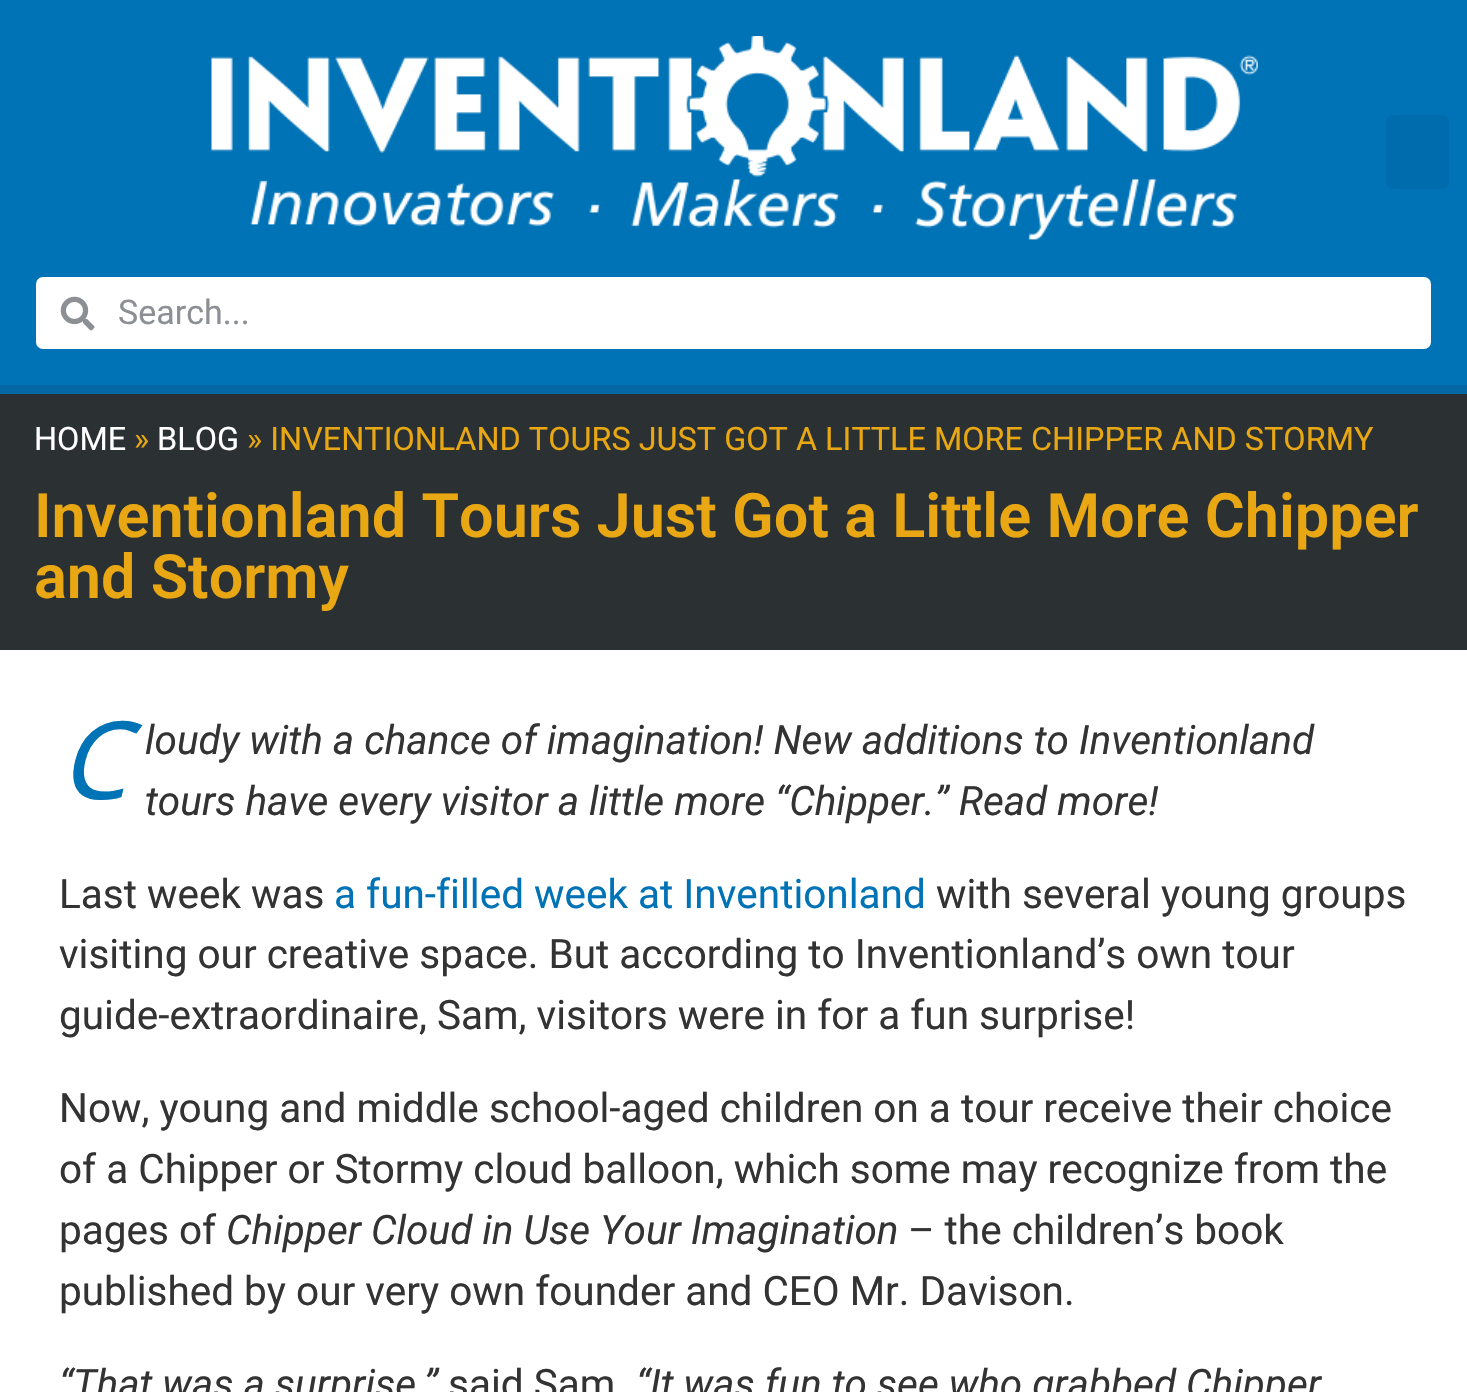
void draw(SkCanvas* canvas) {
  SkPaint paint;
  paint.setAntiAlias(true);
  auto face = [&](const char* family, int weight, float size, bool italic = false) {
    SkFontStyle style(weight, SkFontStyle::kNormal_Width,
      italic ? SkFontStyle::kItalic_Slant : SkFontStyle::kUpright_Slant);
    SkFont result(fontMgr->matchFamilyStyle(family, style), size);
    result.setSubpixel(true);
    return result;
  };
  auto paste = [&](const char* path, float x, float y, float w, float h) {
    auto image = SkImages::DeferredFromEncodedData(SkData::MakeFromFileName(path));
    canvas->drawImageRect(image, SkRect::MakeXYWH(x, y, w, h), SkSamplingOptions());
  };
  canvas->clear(0xffffffff);
  paint.setColor(0xff0567a4);
  canvas->drawRect(SkRect::MakeXYWH(0, 385, 1467, 9), paint);
  paint.setColor(0xff0072b6);
  canvas->drawRect(SkRect::MakeXYWH(0, 0, 1467, 385), paint);
  paste("img/1.png", 211, 36, 1047, 204);
  paint.setColor(0xff006cad);
  canvas->drawRoundRect(SkRect::MakeXYWH(1386, 115, 63, 74), 7, 7, paint);
  paint.setColor(0xffffffff);
  canvas->drawRoundRect(SkRect::MakeXYWH(36, 277, 1395, 72), 7, 7, paint);
  paste("img/2.png", 60, 296, 35, 35);
  paint.setColor(0xff2b3133);
  canvas->drawRect(SkRect::MakeXYWH(0, 394, 1467, 256), paint);
  auto f0 = face("Roboto", 400, 34);
  paint.setColor(0xff8c8f93);
  canvas->drawString("Search...", 118, 324, f0, paint);
  auto f1 = face("Roboto", 400, 32.4f);
  paint.setColor(0xffffffff);
  canvas->drawString("HOME", 34, 450, f1, paint);
  paint.setColor(0xffe8a713);
  canvas->drawString("»", 134, 450, f1, paint);
  paint.setColor(0xffffffff);
  canvas->drawString("BLOG", 157, 450, f1, paint);
  paint.setColor(0xffe8a713);
  canvas->drawString("» INVENTIONLAND TOURS JUST GOT A LITTLE MORE CHIPPER AND STORMY", 247, 450, f1, paint);
  auto f2 = face("Roboto", 600, 61.2f);
  canvas->drawString("Inventionland Tours Just Got a Little More Chipper", 34, 537, f2, paint);
  canvas->drawString("and Stormy", 34, 598, f2, paint);
  auto f3 = face("Noto Sans", 400, 108, true);
  paint.setColor(0xff0072b6);
  canvas->drawString("C", 59, 799, f3, paint);
  auto f4 = face("Roboto", 400, 40.5f, true);
  paint.setColor(0xff333333);
  canvas->drawString("loudy with a chance of imagination! New additions to Inventionland", 145, 754, f4, paint);
  canvas->drawString("tours have every visitor a little more “Chipper.” Read more!", 145, 815, f4, paint);
  auto f5 = face("Roboto", 400, 40.5f);
  canvas->drawString("Last week was", 59, 908, f5, paint);
  paint.setColor(0xff0072b6);
  canvas->drawString("a fun-filled week at Inventionland", 334, 908, f5, paint);
  paint.setColor(0xff333333);
  {
    const struct { const char* s; float x, y; } items[] = {
      {"with several young groups", 936, 908},
      {"visiting our creative space. But according to Inventionland’s own tour", 59, 968},
      {"guide-extraordinaire, Sam, visitors were in for a fun surprise!", 59, 1029},
      {"Now, young and middle school-aged children on a tour receive their choice", 59, 1122},
      {"of a Chipper or Stormy cloud balloon, which some may recognize from the", 59, 1183},
      {"pages of", 59, 1244},
    };
    for (auto [s, x, y] : items) {
      canvas->drawString(s, x, y, f5, paint);
    }
  }
  canvas->drawString("Chipper Cloud in Use Your Imagination", 226, 1244, f4, paint);
  canvas->drawString("– the children’s book", 908, 1244, f5, paint);
  canvas->drawString("published by our very own founder and CEO Mr. Davison.", 59, 1305, f5, paint);
  canvas->drawString("“That was a surprise,”", 59, 1398, f4, paint);
  canvas->drawString("said Sam", 448, 1398, f5, paint);
  canvas->drawString("“It was fun to see who grabbed Chipper", 636, 1398, f4, paint);
}
